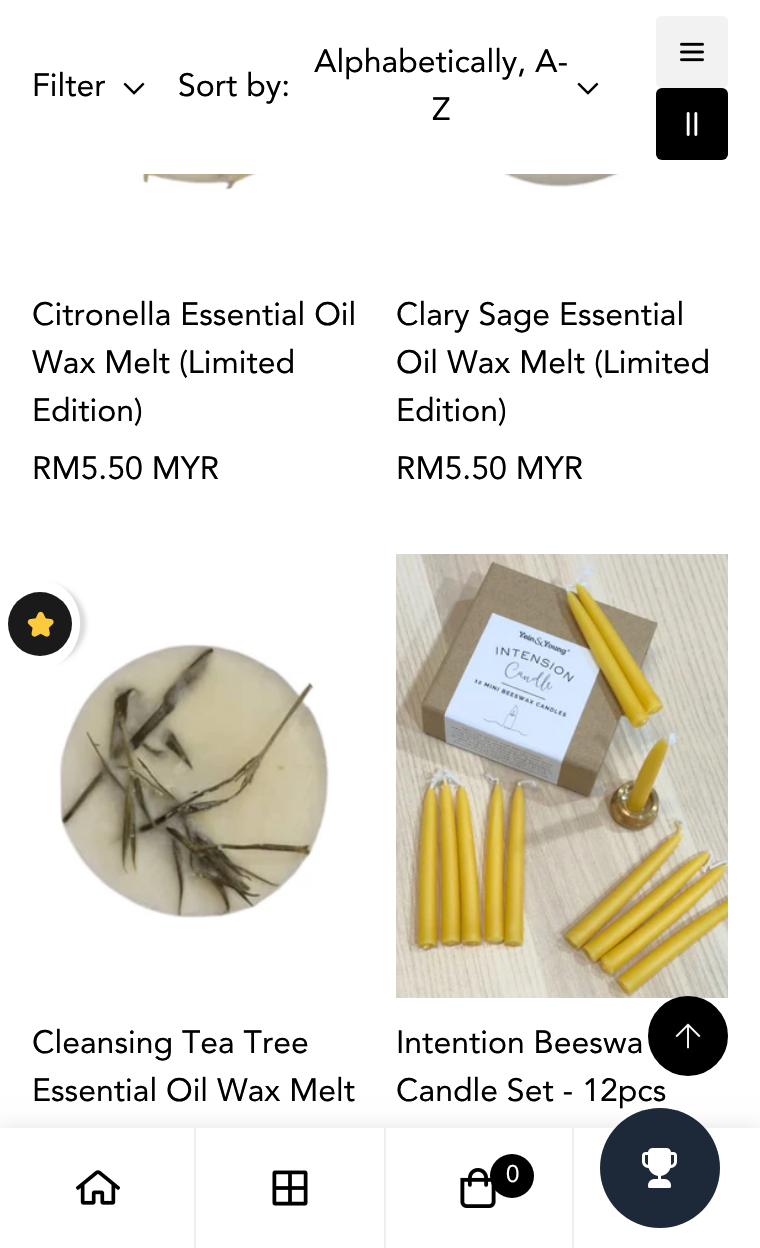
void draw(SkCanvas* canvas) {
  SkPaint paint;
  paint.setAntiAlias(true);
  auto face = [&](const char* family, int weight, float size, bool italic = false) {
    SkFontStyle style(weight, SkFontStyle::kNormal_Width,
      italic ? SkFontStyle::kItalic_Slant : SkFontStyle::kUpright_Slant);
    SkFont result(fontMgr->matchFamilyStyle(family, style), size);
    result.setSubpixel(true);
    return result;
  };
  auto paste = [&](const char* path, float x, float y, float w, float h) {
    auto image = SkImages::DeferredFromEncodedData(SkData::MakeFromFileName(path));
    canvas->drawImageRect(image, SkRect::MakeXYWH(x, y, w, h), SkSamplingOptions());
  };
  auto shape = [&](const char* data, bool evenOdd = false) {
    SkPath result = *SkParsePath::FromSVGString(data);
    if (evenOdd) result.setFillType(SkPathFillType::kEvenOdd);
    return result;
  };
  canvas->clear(0xffffffff);
  paste("img/1.png", 123, 82, 22, 13);
  paste("img/2.png", 577, 82, 22, 13);
  paint.setColor(0xfff2f2f2);
  canvas->drawRoundRect(SkRect::MakeXYWH(656, 16, 72, 72), 6, 6, paint);
  paste("img/3.png", 680, 42, 24, 20);
  paint.setColor(0xff000000);
  canvas->drawRoundRect(SkRect::MakeXYWH(656, 88, 72, 72), 6, 6, paint);
  paste("img/4.png", 686, 112, 12, 24);
  paste("img/5.png", 68, 174, 275, 16);
  paste("img/6.png", 423, 174, 281, 15);
  paste("img/7.png", 59, 643, 270, 275);
  paste("img/8.png", 396, 554, 332, 444);
  canvas->drawCircle(688, 1036, 39, paint);
  paint.setStroke(true);
  paint.setStrokeWidth(2);
  canvas->drawCircle(688, 1036, 39, paint);
  paste("img/9.png", 675, 1023, 26, 26);
  paint.setStroke(false);
  paint.setColor(0xffdadada);
  paint.setMaskFilter(SkMaskFilter::MakeBlur(kNormal_SkBlurStyle, 2));
  canvas->drawRoundRect(SkRect::MakeXYWH(-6, 584, 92, 80), 44, 44, paint);
  paint.setMaskFilter(nullptr);
  paint.setColor(0xffffffff);
  canvas->drawPath(shape("M0 670V578H24C34 578 44 578 53 582C97 600 85 670 36 670Z"), paint);
  paint.setColor(0xff1a1a1a);
  canvas->drawCircle(40, 624, 32, paint);
  paste("img/10.png", 27, 611, 27, 26);
  paint.setColor(0x1c000000);
  paint.setMaskFilter(SkMaskFilter::MakeBlur(kNormal_SkBlurStyle, 10));
  canvas->drawRect(SkRect::MakeXYWH(0, 1128, 760, 120), paint);
  paint.setMaskFilter(nullptr);
  paint.setColor(0xffffffff);
  canvas->drawRect(SkRect::MakeXYWH(0, 1128, 760, 120), paint);
  paint.setColor(0xffeeeeee);
  canvas->drawRect(SkRect::MakeXYWH(194, 1128, 2, 120), paint);
  paste("img/12.png", 75, 1170, 46, 35);
  canvas->drawRect(SkRect::MakeXYWH(384, 1128, 2, 120), paint);
  paste("img/13.png", 272, 1170, 36, 36);
  canvas->drawRect(SkRect::MakeXYWH(572, 1128, 2, 120), paint);
  paste("img/14.png", 460, 1168, 36, 40);
  paint.setColor(0xff000000);
  canvas->drawCircle(512, 1176, 22, paint);
  auto f0 = face("Avenir", 400, 32);
  {
    const struct { const char* s; float x, y; } items[] = {
      {"Filter", 32, 96},
      {"Sort by:", 178, 96},
      {"Alphabetically, A-", 314, 72},
      {"Z", 432, 120},
      {"Citronella Essential Oil", 32, 325},
      {"Wax Melt (Limited", 32, 373},
      {"Edition)", 32, 421},
      {"RM5.50 MYR", 32, 479},
      {"Clary Sage Essential", 396, 325},
      {"Oil Wax Melt (Limited", 396, 373},
      {"Edition)", 396, 421},
      {"RM5.50 MYR", 396, 479},
      {"Cleansing Tea Tree", 32, 1053},
      {"Essential Oil Wax Melt", 32, 1101},
      {"Intention Beeswa", 396, 1053},
      {"Candle Set - 12pcs", 396, 1101},
    };
    for (auto [s, x, y] : items) {
      canvas->drawString(s, x, y, f0, paint);
    }
  }
  paint.setColor(0xff1d2939);
  canvas->drawCircle(660, 1168, 60, paint);
  paste("img/11.png", 642, 1148, 35, 40);
  auto f1 = face("Avenir", 400, 24);
  paint.setColor(0xffffffff);
  canvas->drawString("0", 506, 1182, f1, paint);
}
